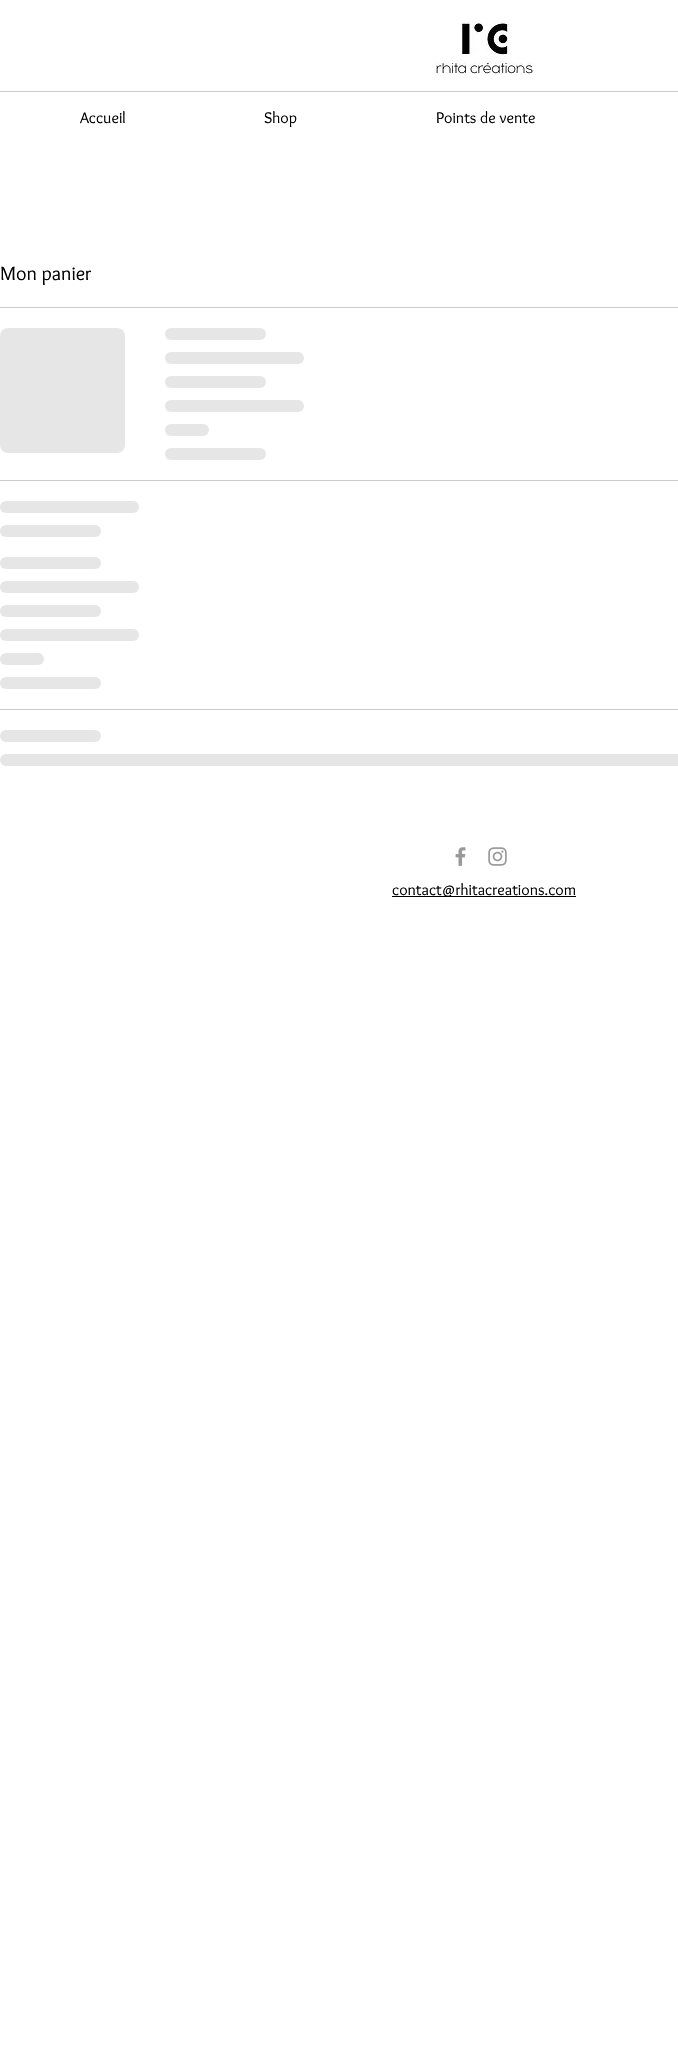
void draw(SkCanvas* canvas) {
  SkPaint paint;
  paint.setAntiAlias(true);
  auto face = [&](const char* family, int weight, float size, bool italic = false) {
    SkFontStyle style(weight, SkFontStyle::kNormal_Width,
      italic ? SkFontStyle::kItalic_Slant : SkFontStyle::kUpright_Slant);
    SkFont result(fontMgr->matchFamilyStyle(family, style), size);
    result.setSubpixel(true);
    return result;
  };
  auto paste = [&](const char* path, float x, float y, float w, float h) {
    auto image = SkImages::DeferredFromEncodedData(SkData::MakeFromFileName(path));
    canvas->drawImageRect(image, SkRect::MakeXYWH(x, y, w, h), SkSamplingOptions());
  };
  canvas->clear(0xffffffff);
  paste("img/1.png", 434, 22, 100, 53);
  paint.setColor(0xffcccccc);
  canvas->drawRect(SkRect::MakeXYWH(0, 91, 678, 1), paint);
  canvas->drawRect(SkRect::MakeXYWH(0, 307, 678, 1), paint);
  {
    const SkColor colors[] = {0xffe6e6e6, 0xffcccccc, 0xffe6e6e6};
    const float stops[] = {0.25f, 0.37f, 0.63f};
    const SkPoint ends[] = {{0, 391}, {500, 391}};
    paint.setShader(SkGradientShader::MakeLinear(ends, colors, stops, 3, SkTileMode::kClamp));
    paint.setAlpha(255);
  }
  canvas->drawRoundRect(SkRect::MakeXYWH(0, 328, 125, 125), 8, 8, paint);
  {
    const SkColor colors[] = {0xffe6e6e6, 0xffcccccc, 0xffe6e6e6};
    const float stops[] = {0.25f, 0.37f, 0.63f};
    const SkPoint ends[] = {{165, 334}, {569, 334}};
    paint.setShader(SkGradientShader::MakeLinear(ends, colors, stops, 3, SkTileMode::kClamp));
    paint.setAlpha(255);
  }
  canvas->drawRoundRect(SkRect::MakeXYWH(165, 328, 101, 12), 6, 6, paint);
  {
    const SkColor colors[] = {0xffe6e6e6, 0xffcccccc, 0xffe6e6e6};
    const float stops[] = {0.25f, 0.37f, 0.63f};
    const SkPoint ends[] = {{165, 358}, {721, 358}};
    paint.setShader(SkGradientShader::MakeLinear(ends, colors, stops, 3, SkTileMode::kClamp));
    paint.setAlpha(255);
  }
  canvas->drawRoundRect(SkRect::MakeXYWH(165, 352, 139, 12), 6, 6, paint);
  {
    const SkColor colors[] = {0xffe6e6e6, 0xffcccccc, 0xffe6e6e6};
    const float stops[] = {0.25f, 0.37f, 0.63f};
    const SkPoint ends[] = {{165, 382}, {569, 382}};
    paint.setShader(SkGradientShader::MakeLinear(ends, colors, stops, 3, SkTileMode::kClamp));
    paint.setAlpha(255);
  }
  canvas->drawRoundRect(SkRect::MakeXYWH(165, 376, 101, 12), 6, 6, paint);
  {
    const SkColor colors[] = {0xffe6e6e6, 0xffcccccc, 0xffe6e6e6};
    const float stops[] = {0.25f, 0.37f, 0.63f};
    const SkPoint ends[] = {{165, 406}, {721, 406}};
    paint.setShader(SkGradientShader::MakeLinear(ends, colors, stops, 3, SkTileMode::kClamp));
    paint.setAlpha(255);
  }
  canvas->drawRoundRect(SkRect::MakeXYWH(165, 400, 139, 12), 6, 6, paint);
  {
    const SkColor colors[] = {0xffe6e6e6, 0xffcccccc, 0xffe6e6e6};
    const float stops[] = {0.25f, 0.37f, 0.63f};
    const SkPoint ends[] = {{165, 430}, {341, 430}};
    paint.setShader(SkGradientShader::MakeLinear(ends, colors, stops, 3, SkTileMode::kClamp));
    paint.setAlpha(255);
  }
  canvas->drawRoundRect(SkRect::MakeXYWH(165, 424, 44, 12), 6, 6, paint);
  {
    const SkColor colors[] = {0xffe6e6e6, 0xffcccccc, 0xffe6e6e6};
    const float stops[] = {0.25f, 0.37f, 0.63f};
    const SkPoint ends[] = {{165, 454}, {569, 454}};
    paint.setShader(SkGradientShader::MakeLinear(ends, colors, stops, 3, SkTileMode::kClamp));
    paint.setAlpha(255);
  }
  canvas->drawRoundRect(SkRect::MakeXYWH(165, 448, 101, 12), 6, 6, paint);
  paint.setShader(nullptr);
  paint.setColor(0xffcccccc);
  canvas->drawRect(SkRect::MakeXYWH(0, 480, 678, 1), paint);
  {
    const SkColor colors[] = {0xffe6e6e6, 0xffcccccc, 0xffe6e6e6};
    const float stops[] = {0.25f, 0.37f, 0.63f};
    const SkPoint ends[] = {{0, 507}, {556, 507}};
    paint.setShader(SkGradientShader::MakeLinear(ends, colors, stops, 3, SkTileMode::kClamp));
    paint.setAlpha(255);
  }
  canvas->drawRoundRect(SkRect::MakeXYWH(0, 501, 139, 12), 6, 6, paint);
  {
    const SkColor colors[] = {0xffe6e6e6, 0xffcccccc, 0xffe6e6e6};
    const float stops[] = {0.25f, 0.37f, 0.63f};
    const SkPoint ends[] = {{0, 531}, {404, 531}};
    paint.setShader(SkGradientShader::MakeLinear(ends, colors, stops, 3, SkTileMode::kClamp));
    paint.setAlpha(255);
  }
  canvas->drawRoundRect(SkRect::MakeXYWH(0, 525, 101, 12), 6, 6, paint);
  {
    const SkColor colors[] = {0xffe6e6e6, 0xffcccccc, 0xffe6e6e6};
    const float stops[] = {0.25f, 0.37f, 0.63f};
    const SkPoint ends[] = {{0, 563}, {404, 563}};
    paint.setShader(SkGradientShader::MakeLinear(ends, colors, stops, 3, SkTileMode::kClamp));
    paint.setAlpha(255);
  }
  canvas->drawRoundRect(SkRect::MakeXYWH(0, 557, 101, 12), 6, 6, paint);
  {
    const SkColor colors[] = {0xffe6e6e6, 0xffcccccc, 0xffe6e6e6};
    const float stops[] = {0.25f, 0.37f, 0.63f};
    const SkPoint ends[] = {{0, 587}, {556, 587}};
    paint.setShader(SkGradientShader::MakeLinear(ends, colors, stops, 3, SkTileMode::kClamp));
    paint.setAlpha(255);
  }
  canvas->drawRoundRect(SkRect::MakeXYWH(0, 581, 139, 12), 6, 6, paint);
  {
    const SkColor colors[] = {0xffe6e6e6, 0xffcccccc, 0xffe6e6e6};
    const float stops[] = {0.25f, 0.37f, 0.63f};
    const SkPoint ends[] = {{0, 611}, {404, 611}};
    paint.setShader(SkGradientShader::MakeLinear(ends, colors, stops, 3, SkTileMode::kClamp));
    paint.setAlpha(255);
  }
  canvas->drawRoundRect(SkRect::MakeXYWH(0, 605, 101, 12), 6, 6, paint);
  {
    const SkColor colors[] = {0xffe6e6e6, 0xffcccccc, 0xffe6e6e6};
    const float stops[] = {0.25f, 0.37f, 0.63f};
    const SkPoint ends[] = {{0, 635}, {556, 635}};
    paint.setShader(SkGradientShader::MakeLinear(ends, colors, stops, 3, SkTileMode::kClamp));
    paint.setAlpha(255);
  }
  canvas->drawRoundRect(SkRect::MakeXYWH(0, 629, 139, 12), 6, 6, paint);
  {
    const SkColor colors[] = {0xffe6e6e6, 0xffcccccc, 0xffe6e6e6};
    const float stops[] = {0.25f, 0.37f, 0.63f};
    const SkPoint ends[] = {{0, 659}, {176, 659}};
    paint.setShader(SkGradientShader::MakeLinear(ends, colors, stops, 3, SkTileMode::kClamp));
    paint.setAlpha(255);
  }
  canvas->drawRoundRect(SkRect::MakeXYWH(0, 653, 44, 12), 6, 6, paint);
  {
    const SkColor colors[] = {0xffe6e6e6, 0xffcccccc, 0xffe6e6e6};
    const float stops[] = {0.25f, 0.37f, 0.63f};
    const SkPoint ends[] = {{0, 683}, {404, 683}};
    paint.setShader(SkGradientShader::MakeLinear(ends, colors, stops, 3, SkTileMode::kClamp));
    paint.setAlpha(255);
  }
  canvas->drawRoundRect(SkRect::MakeXYWH(0, 677, 101, 12), 6, 6, paint);
  paint.setShader(nullptr);
  paint.setColor(0xffcccccc);
  canvas->drawRect(SkRect::MakeXYWH(0, 709, 678, 1), paint);
  {
    const SkColor colors[] = {0xffe6e6e6, 0xffcccccc, 0xffe6e6e6};
    const float stops[] = {0.25f, 0.37f, 0.63f};
    const SkPoint ends[] = {{0, 736}, {404, 736}};
    paint.setShader(SkGradientShader::MakeLinear(ends, colors, stops, 3, SkTileMode::kClamp));
    paint.setAlpha(255);
  }
  canvas->drawRoundRect(SkRect::MakeXYWH(0, 730, 101, 12), 6, 6, paint);
  {
    const SkColor colors[] = {0xffe6e6e6, 0xffcccccc, 0xffe6e6e6};
    const float stops[] = {0.25f, 0.37f, 0.63f};
    const SkPoint ends[] = {{0, 760}, {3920, 760}};
    paint.setShader(SkGradientShader::MakeLinear(ends, colors, stops, 3, SkTileMode::kClamp));
    paint.setAlpha(255);
  }
  canvas->drawRoundRect(SkRect::MakeXYWH(0, 754, 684, 12), 6, 6, paint);
  paste("img/2.png", 455, 847, 11, 19);
  paste("img/3.png", 488, 847, 19, 19);
  paint.setShader(nullptr);
  paint.setColor(0xff000000);
  canvas->drawRect(SkRect::MakeXYWH(392, 896, 184, 1), paint);
  auto f0 = face("Overlock", 400, 16);
  {
    const struct { const char* s; float x, y; } items[] = {
      {"Accueil", 80, 123},
      {"Shop", 264, 123},
      {"Points de vente", 436, 123},
    };
    for (auto [s, x, y] : items) {
      canvas->drawString(s, x, y, f0, paint);
    }
  }
  auto f1 = face("Overlock", 400, 20);
  canvas->drawString("Mon panier", 0, 280, f1, paint);
  canvas->drawString("contact@rhitacreations.com", 392, 895, f0, paint);
}
